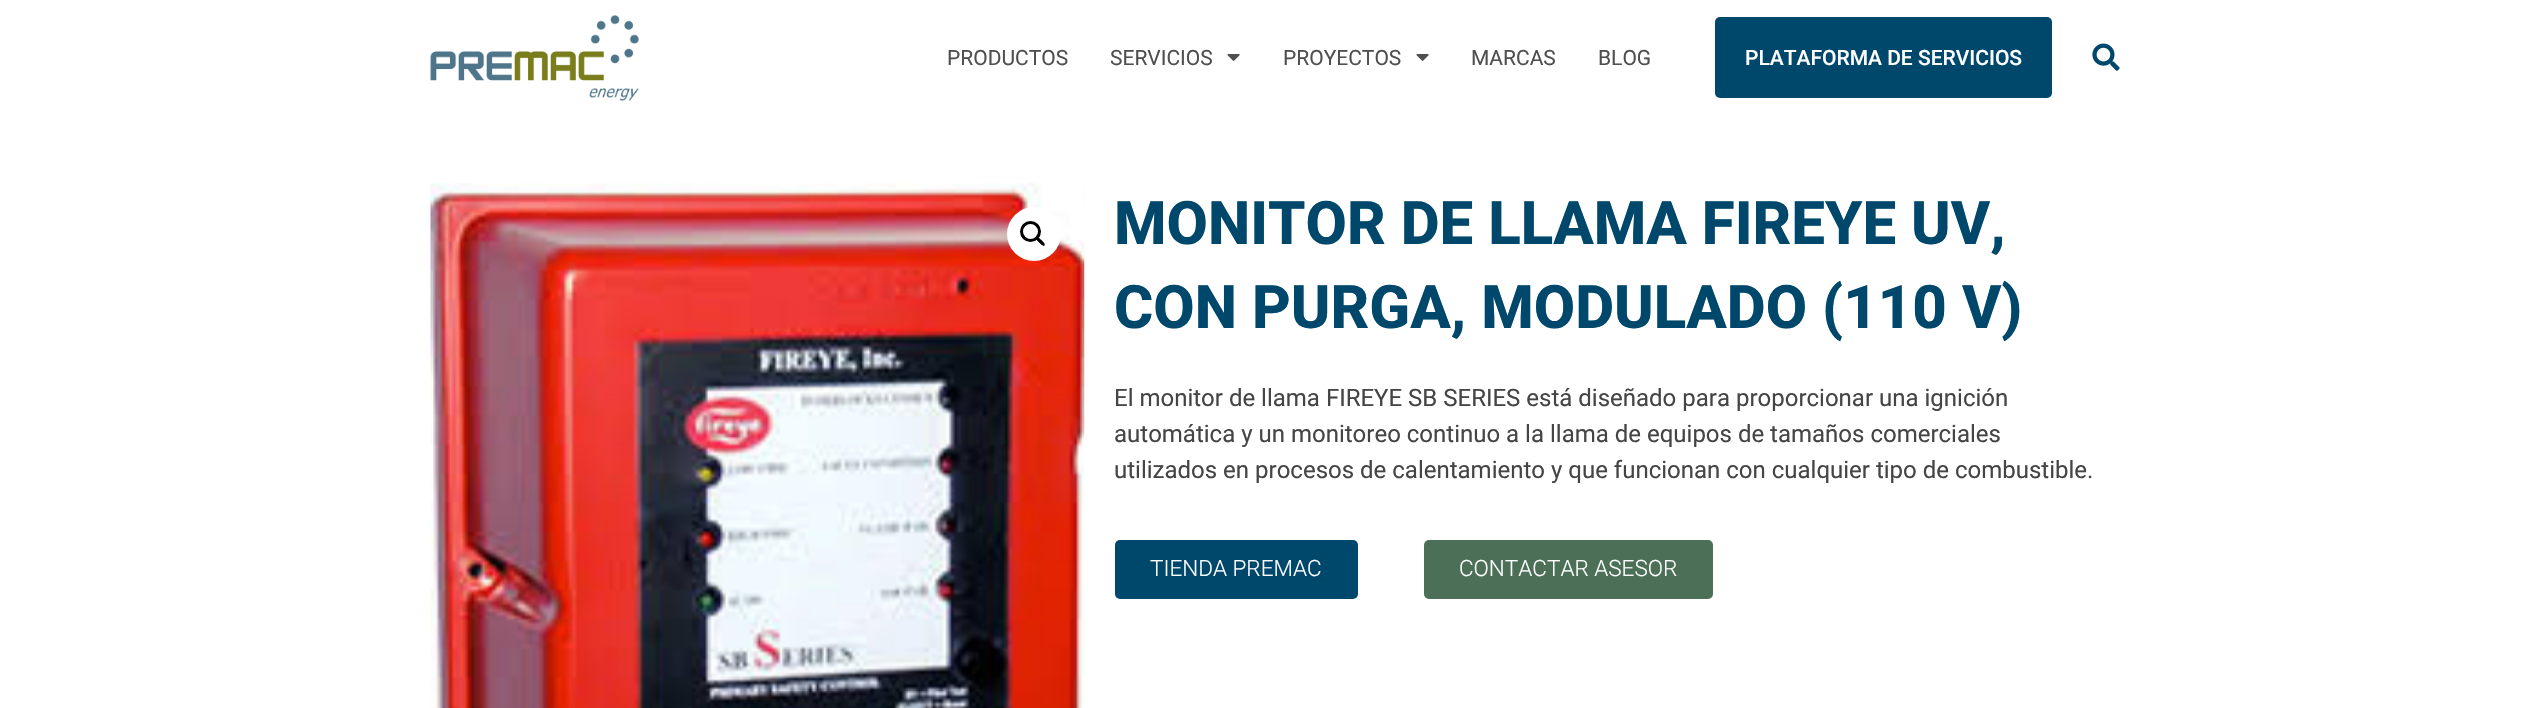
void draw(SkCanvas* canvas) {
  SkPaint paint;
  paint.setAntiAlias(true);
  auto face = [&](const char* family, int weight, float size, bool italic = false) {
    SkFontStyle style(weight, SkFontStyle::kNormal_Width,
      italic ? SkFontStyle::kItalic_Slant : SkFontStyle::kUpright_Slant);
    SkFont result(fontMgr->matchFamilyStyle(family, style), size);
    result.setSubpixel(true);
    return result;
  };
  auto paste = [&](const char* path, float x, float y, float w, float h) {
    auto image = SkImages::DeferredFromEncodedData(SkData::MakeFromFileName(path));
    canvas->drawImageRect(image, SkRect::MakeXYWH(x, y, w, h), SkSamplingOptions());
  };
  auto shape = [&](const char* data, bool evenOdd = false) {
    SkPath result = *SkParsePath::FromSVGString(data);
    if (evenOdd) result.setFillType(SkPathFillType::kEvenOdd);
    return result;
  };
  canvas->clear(0xffffffff);
  paste("img/1.png", 430, 15, 209, 86);
  paste("img/2.png", 1227, 54, 13, 7);
  paste("img/2.png", 1416, 54, 13, 7);
  paint.setColor(0xff00476c);
  canvas->drawRoundRect(SkRect::MakeXYWH(1715, 17, 337, 81), 5, 5, paint);
  paste("img/3.png", 2092, 43, 28, 28);
  paste("img/4.png", 430, 183, 655, 525);
  paste("img/5.png", 1084, 184, 1, 254);
  paint.setColor(0xffffffff);
  canvas->drawCircle(1034, 234, 27, paint);
  paint.setStroke(true);
  paint.setStrokeWidth(3);
  paint.setColor(0xff000000);
  canvas->drawCircle(1030.5f, 231.5f, 9, paint);
  paint.setStroke(false);
  canvas->drawPath(shape("M1036 237C1037.5 235.5 1040.5 239.5 1041.5 240C1042 241 1046 244 1044.5 245.5C1043 247 1040 243 1039 242.5C1038.5 241.5 1034.5 238.5 1036 237Z"), paint);
  paint.setColor(0xff00476c);
  canvas->drawRoundRect(SkRect::MakeXYWH(1115, 540, 243, 59), 5, 5, paint);
  paint.setColor(0xff4b6f57);
  canvas->drawRoundRect(SkRect::MakeXYWH(1424, 540, 289, 59), 5, 5, paint);
  auto f0 = face("Roboto", 400, 21);
  paint.setColor(0xff4f4f4f);
  {
    const struct { const char* s; float x, y; } items[] = {
      {"PRODUCTOS", 947, 65},
      {"SERVICIOS", 1110, 65},
      {"PROYECTOS", 1283, 65},
      {"MARCAS", 1471, 65},
      {"BLOG", 1598, 65},
    };
    for (auto [s, x, y] : items) {
      canvas->drawString(s, x, y, f0, paint);
    }
  }
  auto f1 = face("Roboto", 500, 21);
  paint.setColor(0xffffffff);
  canvas->drawString("PLATAFORMA DE SERVICIOS", 1745, 65, f1, paint);
  auto f2 = face("Roboto", 800, 60);
  paint.setColor(0xff00476c);
  canvas->drawString("MONITOR DE LLAMA FIREYE UV,", 1114, 244, f2, paint);
  canvas->drawString("CON PURGA, MODULADO (110 V)", 1114, 328, f2, paint);
  auto f3 = face("Roboto", 400, 24);
  paint.setColor(0xff454545);
  {
    const struct { const char* s; float x, y; } items[] = {
      {"El monitor de llama FIREYE SB SERIES está diseñado para proporcionar una ignición", 1114, 406},
      {"automática y un monitoreo continuo a la llama de equipos de tamaños comerciales", 1114, 442},
      {"utilizados en procesos de calentamiento y que funcionan con cualquier tipo de combustible.", 1114, 478},
    };
    for (auto [s, x, y] : items) {
      canvas->drawString(s, x, y, f3, paint);
    }
  }
  auto f4 = face("Roboto", 300, 22.5f);
  paint.setColor(0xffffffff);
  canvas->drawString("TIENDA PREMAC", 1150, 576, f4, paint);
  canvas->drawString("CONTACTAR ASESOR", 1459, 576, f4, paint);
}
